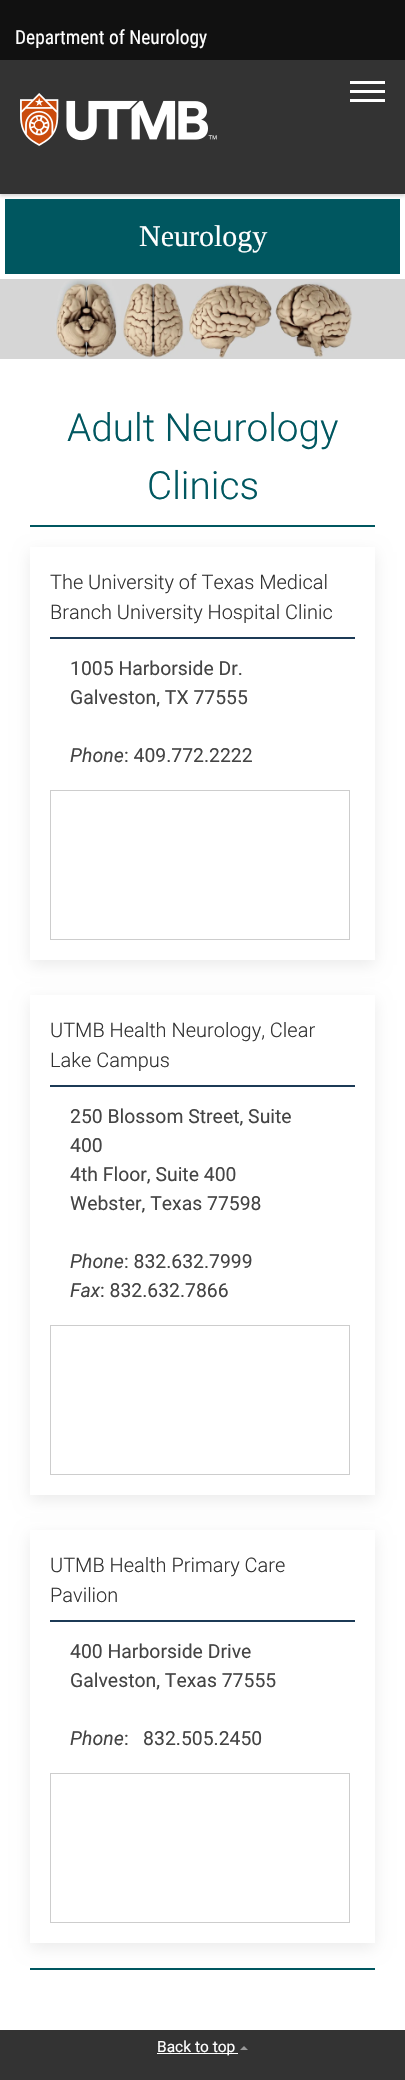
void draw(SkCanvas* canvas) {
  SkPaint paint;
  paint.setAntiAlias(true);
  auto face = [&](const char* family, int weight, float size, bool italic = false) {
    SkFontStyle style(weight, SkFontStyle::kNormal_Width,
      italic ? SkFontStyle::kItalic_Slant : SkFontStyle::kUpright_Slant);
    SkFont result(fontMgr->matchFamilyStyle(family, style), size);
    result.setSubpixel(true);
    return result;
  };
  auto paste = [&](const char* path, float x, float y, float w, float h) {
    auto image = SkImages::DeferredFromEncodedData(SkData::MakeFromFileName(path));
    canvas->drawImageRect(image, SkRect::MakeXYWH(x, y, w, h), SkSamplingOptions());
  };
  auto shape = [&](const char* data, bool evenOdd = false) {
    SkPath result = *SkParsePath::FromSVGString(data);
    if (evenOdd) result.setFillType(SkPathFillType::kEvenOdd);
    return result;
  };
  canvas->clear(0xffffffff);
  paint.setColor(0xff111111);
  canvas->drawRect(SkRect::MakeXYWH(0, 0, 405, 60), paint);
  paint.setColor(0xff005760);
  canvas->drawRect(SkRect::MakeXYWH(5, 199, 395, 75), paint);
  paint.setColor(0x29000000);
  paint.setMaskFilter(SkMaskFilter::MakeBlur(kNormal_SkBlurStyle, 1.5f));
  canvas->drawRect(SkRect::MakeXYWH(0, 62, 405, 134), paint);
  paint.setMaskFilter(nullptr);
  paint.setColor(0xff333333);
  canvas->drawRect(SkRect::MakeXYWH(0, 60, 405, 134), paint);
  paste("img/1.png", 20, 93, 197, 53);
  {
    const struct { float x, y, w, h; SkColor color; } items[] = {
      {350, 81, 35, 3, 0xffffffff},
      {350, 90, 35, 3, 0xffffffff},
      {350, 99, 35, 3, 0xffffffff},
    };
    for (auto [x, y, w, h, color] : items) {
      paint.setColor(color);
      canvas->drawRect(SkRect::MakeXYWH(x, y, w, h), paint);
    }
  }
  paste("img/2.png", 0, 279, 405, 80);
  paint.setColor(0xff005760);
  canvas->drawRect(SkRect::MakeXYWH(30, 525, 345, 2), paint);
  canvas->save();
  canvas->clipPath(shape("M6 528H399V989H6ZM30 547H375V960H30Z", true), true);
  paint.setColor(0x14000000);
  paint.setMaskFilter(SkMaskFilter::MakeBlur(kNormal_SkBlurStyle, 7.5f));
  canvas->drawRect(SkRect::MakeXYWH(30, 552, 345, 413), paint);
  paint.setMaskFilter(nullptr);
  canvas->restore();
  paint.setColor(0xff1c3a56);
  canvas->drawRect(SkRect::MakeXYWH(50, 637, 305, 2), paint);
  paint.setStroke(true);
  paint.setStrokeWidth(1);
  paint.setColor(0xffcdcdcd);
  canvas->drawRect(SkRect::MakeXYWH(50.5f, 790.5f, 299, 149), paint);
  canvas->save();
  canvas->clipPath(shape("M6 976H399V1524H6ZM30 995H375V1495H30Z", true), true);
  paint.setStroke(false);
  paint.setColor(0x14000000);
  paint.setMaskFilter(SkMaskFilter::MakeBlur(kNormal_SkBlurStyle, 7.5f));
  canvas->drawRect(SkRect::MakeXYWH(30, 1000, 345, 500), paint);
  paint.setMaskFilter(nullptr);
  canvas->restore();
  paint.setColor(0xff1c3a56);
  canvas->drawRect(SkRect::MakeXYWH(50, 1085, 305, 2), paint);
  paint.setStroke(true);
  paint.setColor(0xffcdcdcd);
  canvas->drawRect(SkRect::MakeXYWH(50.5f, 1325.5f, 299, 149), paint);
  paint.setStroke(false);
  paint.setColor(0xff005760);
  canvas->drawRect(SkRect::MakeXYWH(30, 1968, 345, 2), paint);
  canvas->save();
  canvas->clipPath(shape("M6 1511H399V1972H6ZM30 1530H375V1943H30Z", true), true);
  paint.setColor(0x14000000);
  paint.setMaskFilter(SkMaskFilter::MakeBlur(kNormal_SkBlurStyle, 7.5f));
  canvas->drawRect(SkRect::MakeXYWH(30, 1535, 345, 413), paint);
  paint.setMaskFilter(nullptr);
  canvas->restore();
  paint.setColor(0xff1c3a56);
  canvas->drawRect(SkRect::MakeXYWH(50, 1620, 305, 2), paint);
  paint.setStroke(true);
  paint.setColor(0xffcdcdcd);
  canvas->drawRect(SkRect::MakeXYWH(50.5f, 1773.5f, 299, 149), paint);
  paint.setStroke(false);
  paint.setColor(0xff333333);
  canvas->drawRect(SkRect::MakeXYWH(0, 2030, 405, 50), paint);
  paint.setColor(0xffffffff);
  canvas->drawRect(SkRect::MakeXYWH(157, 2053, 81, 1), paint);
  paint.setColor(0xff999999);
  canvas->drawPath(shape("M248 2050H240L244 2046Z"), paint);
  auto f0 = face("Roboto Condensed", 400, 19.4f);
  paint.setColor(0xffffffff);
  canvas->drawString("Department of Neurology", 15, 44, f0, paint);
  auto f1 = face("Liberation Serif", 400, 30);
  canvas->drawString("Neurology", 139, 246, f1, paint);
  auto f2 = face("Roboto", 300, 38.75f);
  paint.setColor(0xff005760);
  canvas->drawString("Adult Neurology", 67, 441, f2, paint);
  canvas->drawString("Clinics", 147, 499, f2, paint);
  auto f3 = face("Roboto", 300, 20);
  paint.setColor(0xff333333);
  canvas->drawString("The University of Texas Medical", 50, 589, f3, paint);
  canvas->drawString("Branch University Hospital Clinic", 50, 619, f3, paint);
  auto f4 = face("Roboto", 400, 19.4f);
  paint.setColor(0xff444444);
  canvas->drawString("1005 Harborside Dr.", 70, 675, f4, paint);
  canvas->drawString("Galveston, TX 77555", 70, 704, f4, paint);
  auto f5 = face("Roboto", 400, 19.4f, true);
  canvas->drawString("Phone", 70, 762, f5, paint);
  canvas->drawString(": 409.772.2222", 124, 762, f4, paint);
  paint.setColor(0xff333333);
  canvas->drawString("UTMB Health Neurology, Clear", 50, 1037, f3, paint);
  canvas->drawString("Lake Campus", 50, 1067, f3, paint);
  paint.setColor(0xff444444);
  {
    const struct { const char* s; float x, y; } items[] = {
      {"250 Blossom Street, Suite", 70, 1123},
      {"400", 70, 1152},
      {"4th Floor, Suite 400", 70, 1181},
      {"Webster, Texas 77598", 70, 1210},
    };
    for (auto [s, x, y] : items) {
      canvas->drawString(s, x, y, f4, paint);
    }
  }
  canvas->drawString("Phone", 70, 1268, f5, paint);
  canvas->drawString(": 832.632.7999", 124, 1268, f4, paint);
  canvas->drawString("Fax", 70, 1297, f5, paint);
  canvas->drawString(": 832.632.7866", 100, 1297, f4, paint);
  paint.setColor(0xff333333);
  canvas->drawString("UTMB Health Primary Care", 50, 1572, f3, paint);
  canvas->drawString("Pavilion", 50, 1602, f3, paint);
  paint.setColor(0xff444444);
  canvas->drawString("400 Harborside Drive", 70, 1658, f4, paint);
  canvas->drawString("Galveston, Texas 77555", 70, 1687, f4, paint);
  canvas->drawString("Phone", 70, 1745, f5, paint);
  canvas->drawString(":   832.505.2450", 124, 1745, f4, paint);
  auto f6 = face("Roboto", 400, 15.5f);
  paint.setColor(0xffffffff);
  canvas->drawString("Back to top", 157, 2052, f6, paint);
}
